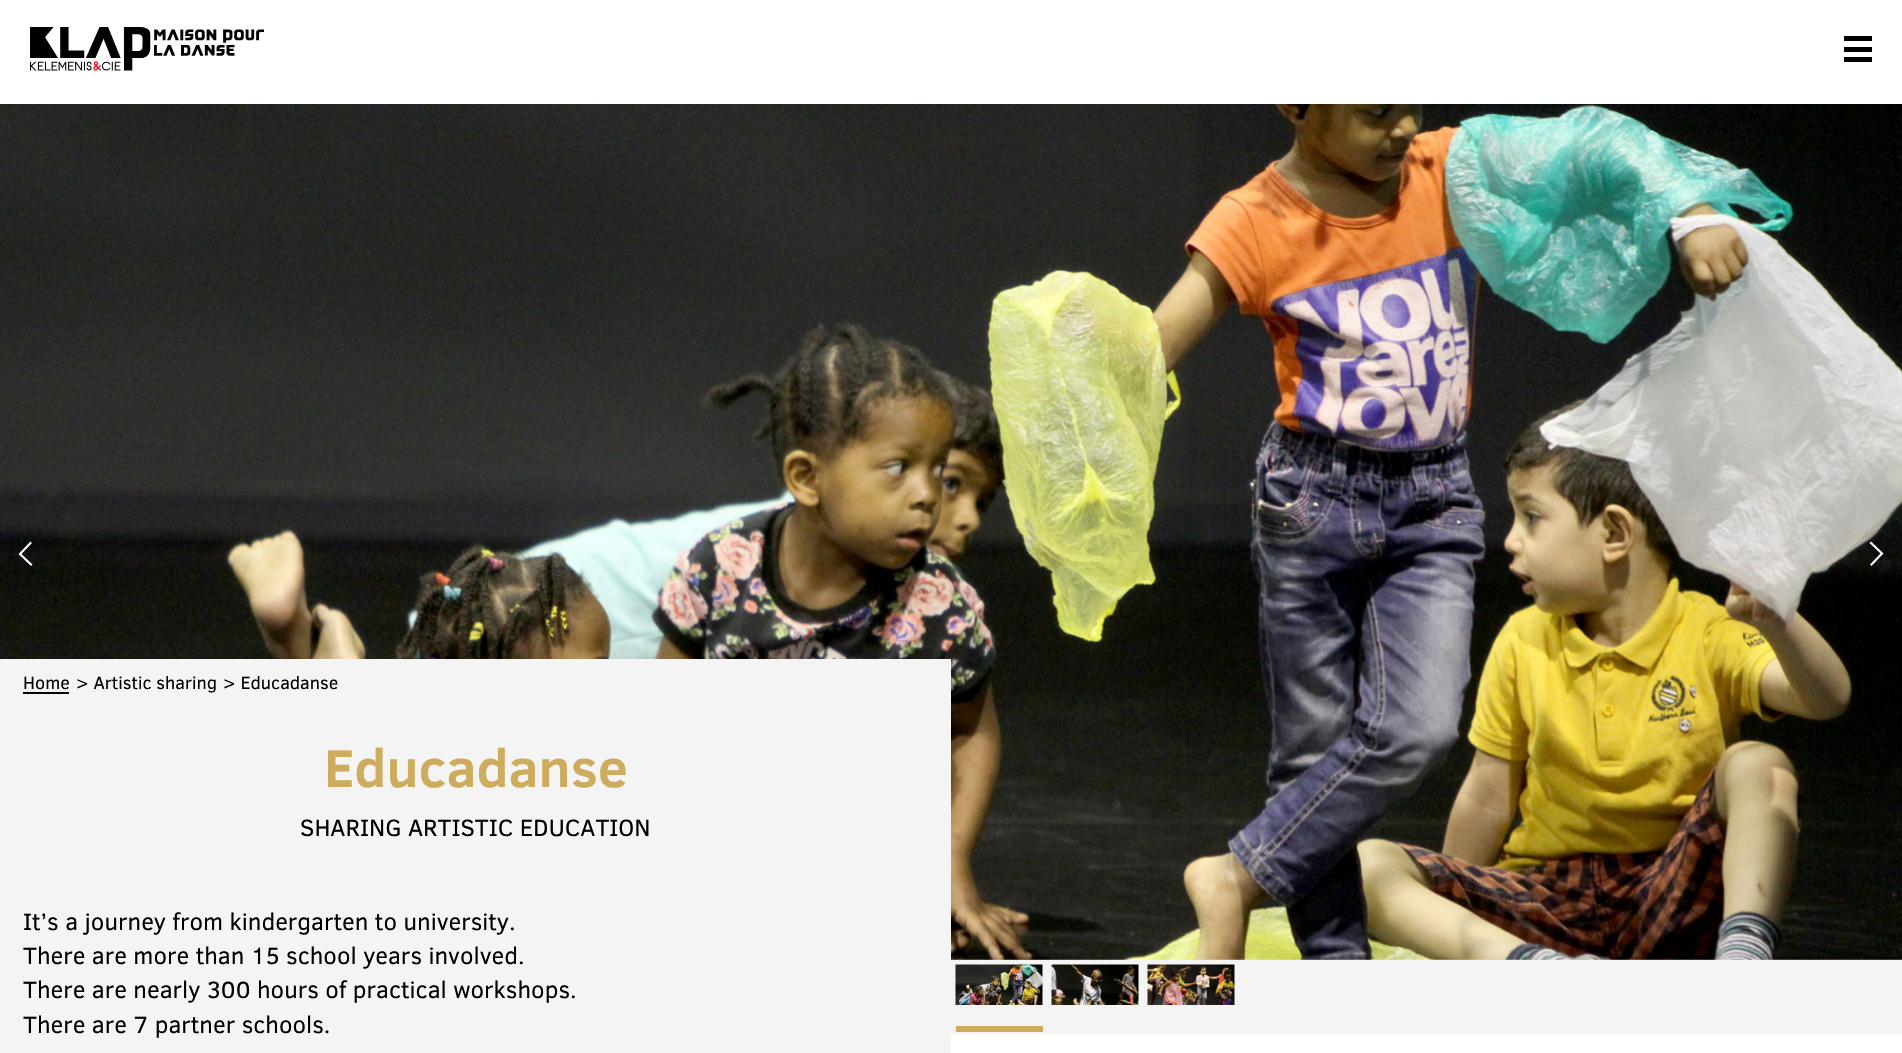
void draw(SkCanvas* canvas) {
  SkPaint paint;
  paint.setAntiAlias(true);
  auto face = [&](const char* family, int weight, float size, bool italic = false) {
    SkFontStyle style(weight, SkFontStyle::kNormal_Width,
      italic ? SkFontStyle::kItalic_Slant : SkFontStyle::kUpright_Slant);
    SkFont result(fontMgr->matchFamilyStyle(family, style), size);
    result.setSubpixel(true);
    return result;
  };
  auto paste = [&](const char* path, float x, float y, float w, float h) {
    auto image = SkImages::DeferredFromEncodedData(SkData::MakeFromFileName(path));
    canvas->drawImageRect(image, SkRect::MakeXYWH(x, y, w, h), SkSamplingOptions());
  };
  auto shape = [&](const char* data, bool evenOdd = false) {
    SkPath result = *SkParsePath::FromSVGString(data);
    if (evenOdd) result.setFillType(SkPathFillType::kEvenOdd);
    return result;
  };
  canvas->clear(0xffffffff);
  paste("img/1.png", 30, 27, 234, 44);
  {
    const struct { float x, y, w, h; SkColor color; } items[] = {
      {1844, 36, 28, 5, 0xff000000},
      {1844, 47, 28, 5, 0xff000000},
      {1844, 57, 28, 5, 0xff000000},
      {951, 959, 951, 75, 0xfff5f4f4},
    };
    for (auto [x, y, w, h, color] : items) {
      paint.setColor(color);
      canvas->drawRect(SkRect::MakeXYWH(x, y, w, h), paint);
    }
  }
  paste("img/2.png", 0, 104, 1902, 856);
  paint.setColor(0xffffffff);
  canvas->drawPath(shape("M18.5 554L30.5 541.5L32 543L21.5 554L32.5 564.5L31 566Z"), paint);
  canvas->drawPath(shape("M1883.5 553.5L1871.5 566L1870 564.5L1880.5 553.5L1869.5 543L1871 541.5Z"), paint);
  paste("img/3.png", 955, 964, 88, 41);
  paint.setColor(0xffcdad5d);
  canvas->drawRect(SkRect::MakeXYWH(956, 1026, 87, 6), paint);
  paste("img/4.png", 1051, 964, 88, 41);
  paste("img/5.png", 1147, 964, 88, 41);
  paint.setColor(0xfff5f4f4);
  canvas->drawRect(SkRect::MakeXYWH(0, 659, 951, 394), paint);
  paint.setColor(0xff000000);
  canvas->drawRect(SkRect::MakeXYWH(23, 692, 46, 2), paint);
  auto f0 = face("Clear", 400, 18);
  {
    const struct { const char* s; float x, y; } items[] = {
      {"Home", 23, 689},
      {"> Artistic sharing", 76, 689},
      {"> Educadanse", 223, 689},
    };
    for (auto [s, x, y] : items) {
      canvas->drawString(s, x, y, f0, paint);
    }
  }
  auto f1 = face("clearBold", 700, 54);
  paint.setColor(0xffcdad5d);
  canvas->drawString("Educadanse", 324, 787, f1, paint);
  auto f2 = face("Clear", 400, 24);
  paint.setColor(0xff000000);
  {
    const struct { const char* s; float x, y; } items[] = {
      {"SHARING ARTISTIC EDUCATION", 300, 836},
      {"It’s a journey from kindergarten to university.", 23, 930},
      {"There are more than 15 school years involved.", 23, 964},
      {"There are nearly 300 hours of practical workshops.", 23, 998},
      {"There are 7 partner schools.", 23, 1033},
    };
    for (auto [s, x, y] : items) {
      canvas->drawString(s, x, y, f2, paint);
    }
  }
}
